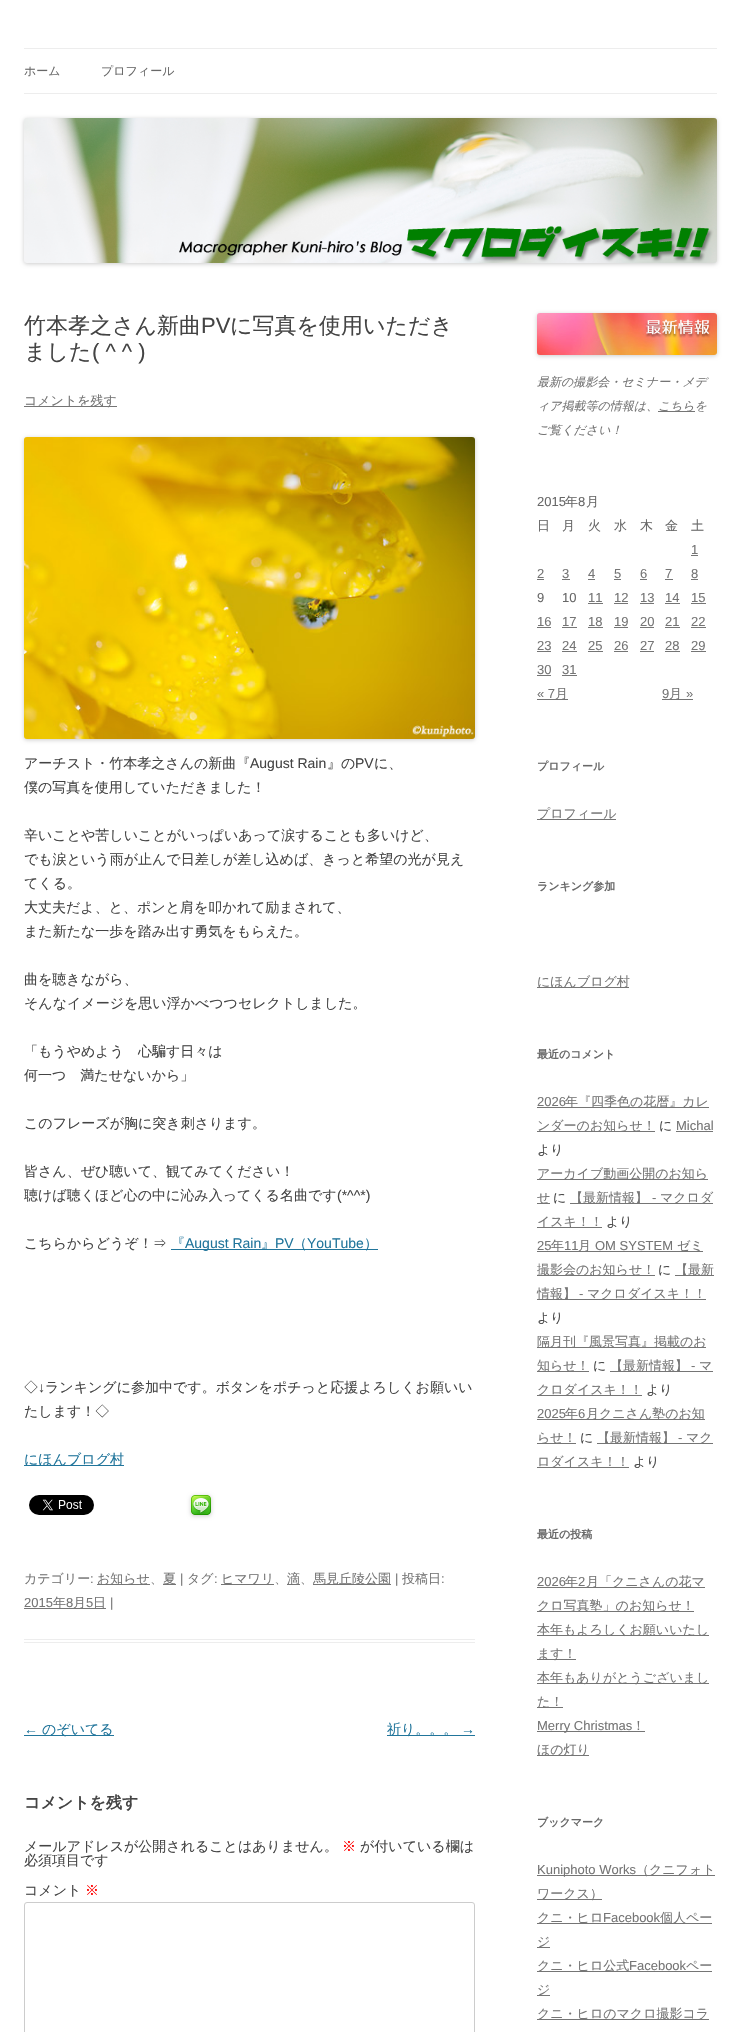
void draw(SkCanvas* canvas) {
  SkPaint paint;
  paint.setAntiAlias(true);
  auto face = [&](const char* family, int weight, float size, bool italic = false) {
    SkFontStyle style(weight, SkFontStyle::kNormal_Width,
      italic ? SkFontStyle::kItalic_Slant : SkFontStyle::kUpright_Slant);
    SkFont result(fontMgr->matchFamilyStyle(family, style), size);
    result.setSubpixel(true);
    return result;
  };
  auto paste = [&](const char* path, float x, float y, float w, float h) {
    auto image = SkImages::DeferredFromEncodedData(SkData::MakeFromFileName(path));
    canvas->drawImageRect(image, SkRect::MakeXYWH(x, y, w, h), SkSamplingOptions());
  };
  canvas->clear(0xffffffff);
  paint.setColor(0xffededed);
  canvas->drawRect(SkRect::MakeXYWH(24, 48, 693, 1), paint);
  canvas->drawRect(SkRect::MakeXYWH(24, 93, 693, 1), paint);
  paint.setColor(0x33000000);
  paint.setMaskFilter(SkMaskFilter::MakeBlur(kNormal_SkBlurStyle, 2));
  canvas->drawRoundRect(SkRect::MakeXYWH(24, 119, 693, 145), 3, 3, paint);
  paint.setMaskFilter(nullptr);
  paste("img/1.png", 24, 118, 693, 145);
  {
    const struct { float x, y, w, h; SkColor color; } items[] = {
      {24, 1639, 451, 1, 0xffededed},
      {24, 1642, 451, 1, 0xffededed},
      {24, 406, 93, 1, 0xff757575},
    };
    for (auto [x, y, w, h, color] : items) {
      paint.setColor(color);
      canvas->drawRect(SkRect::MakeXYWH(x, y, w, h), paint);
    }
  }
  paint.setColor(0x33000000);
  paint.setMaskFilter(SkMaskFilter::MakeBlur(kNormal_SkBlurStyle, 2));
  canvas->drawRoundRect(SkRect::MakeXYWH(24, 438, 451, 302), 3, 3, paint);
  paint.setMaskFilter(nullptr);
  paste("img/2.png", 24, 437, 451, 302);
  paint.setColor(0xff21759b);
  canvas->drawRect(SkRect::MakeXYWH(171, 1249, 207, 1), paint);
  canvas->drawRect(SkRect::MakeXYWH(24, 1465, 100, 1), paint);
  paste("img/3.png", 29, 1495, 65, 20);
  paint.setColor(0x33000000);
  paint.setMaskFilter(SkMaskFilter::MakeBlur(kNormal_SkBlurStyle, 2));
  canvas->drawRoundRect(SkRect::MakeXYWH(191, 1496, 20, 20), 3, 3, paint);
  paint.setMaskFilter(nullptr);
  paste("img/4.png", 191, 1495, 20, 20);
  {
    const struct { float x, y, w, h; SkColor color; } items[] = {
      {97, 1584, 53, 1, 0xff757575},
      {163, 1584, 13, 1, 0xff757575},
      {221, 1584, 53, 1, 0xff757575},
      {287, 1584, 13, 1, 0xff757575},
      {313, 1584, 78, 1, 0xff757575},
      {24, 1608, 82, 1, 0xff757575},
      {24, 1735, 90, 1, 0xff21759b},
      {387, 1735, 88, 1, 0xff21759b},
    };
    for (auto [x, y, w, h, color] : items) {
      paint.setColor(color);
      canvas->drawRect(SkRect::MakeXYWH(x, y, w, h), paint);
    }
  }
  paint.setStroke(true);
  paint.setStrokeWidth(1);
  paint.setColor(0xffcccccc);
  canvas->drawRoundRect(SkRect::MakeXYWH(24.5f, 1902.5f, 450, 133), 2.5f, 2.5f, paint);
  paint.setStroke(false);
  paint.setColor(0x33000000);
  paint.setMaskFilter(SkMaskFilter::MakeBlur(kNormal_SkBlurStyle, 2));
  canvas->drawRoundRect(SkRect::MakeXYWH(537, 314, 180, 42), 3, 3, paint);
  paint.setMaskFilter(nullptr);
  paste("img/5.png", 537, 313, 180, 42);
  {
    const struct { float x, y, w, h; SkColor color; } items[] = {
      {658, 411, 37, 1, 0xff757575},
      {691, 555, 7, 1, 0xff757575},
      {537, 579, 7, 1, 0xff757575},
      {562, 579, 8, 1, 0xff757575},
      {588, 579, 7, 1, 0xff757575},
      {614, 579, 7, 1, 0xff757575},
      {640, 579, 7, 1, 0xff757575},
      {665, 579, 8, 1, 0xff757575},
      {691, 579, 7, 1, 0xff757575},
      {588, 603, 15, 1, 0xff757575},
      {614, 603, 14, 1, 0xff757575},
      {640, 603, 14, 1, 0xff757575},
      {665, 603, 15, 1, 0xff757575},
      {691, 603, 15, 1, 0xff757575},
      {537, 627, 14, 1, 0xff757575},
      {562, 627, 15, 1, 0xff757575},
      {588, 627, 15, 1, 0xff757575},
      {614, 627, 14, 1, 0xff757575},
      {640, 627, 14, 1, 0xff757575},
      {665, 627, 15, 1, 0xff757575},
      {691, 627, 15, 1, 0xff757575},
      {537, 651, 14, 1, 0xff757575},
      {562, 651, 15, 1, 0xff757575},
      {588, 651, 15, 1, 0xff757575},
      {614, 651, 14, 1, 0xff757575},
      {640, 651, 14, 1, 0xff757575},
      {665, 651, 15, 1, 0xff757575},
      {691, 651, 15, 1, 0xff757575},
      {537, 675, 14, 1, 0xff757575},
      {562, 675, 15, 1, 0xff757575},
      {537, 699, 31, 1, 0xff757575},
      {662, 699, 31, 1, 0xff757575},
      {537, 819, 79, 1, 0xff757575},
      {537, 987, 92, 1, 0xff757575},
      {537, 1107, 172, 1, 0xff757575},
      {537, 1131, 118, 1, 0xff757575},
      {676, 1131, 37, 1, 0xff757575},
      {537, 1179, 171, 1, 0xff757575},
      {537, 1203, 13, 1, 0xff757575},
      {570, 1203, 143, 1, 0xff757575},
      {537, 1227, 65, 1, 0xff757575},
      {537, 1251, 166, 1, 0xff757575},
      {537, 1275, 118, 1, 0xff757575},
      {675, 1275, 39, 1, 0xff757575},
      {537, 1299, 169, 1, 0xff757575},
      {537, 1347, 169, 1, 0xff757575},
      {537, 1371, 52, 1, 0xff757575},
      {610, 1371, 103, 1, 0xff757575},
      {537, 1395, 105, 1, 0xff757575},
      {537, 1419, 168, 1, 0xff757575},
      {537, 1443, 39, 1, 0xff757575},
      {597, 1443, 116, 1, 0xff757575},
      {537, 1467, 92, 1, 0xff757575},
      {537, 1587, 168, 1, 0xff757575},
      {537, 1611, 157, 1, 0xff757575},
      {537, 1635, 172, 1, 0xff757575},
      {537, 1659, 39, 1, 0xff757575},
      {537, 1683, 172, 1, 0xff757575},
      {537, 1707, 26, 1, 0xff757575},
      {537, 1731, 108, 1, 0xff757575},
      {537, 1755, 52, 1, 0xff757575},
      {537, 1875, 178, 1, 0xff757575},
      {537, 1899, 65, 1, 0xff757575},
      {537, 1923, 175, 1, 0xff757575},
      {537, 1947, 13, 1, 0xff757575},
      {537, 1971, 175, 1, 0xff757575},
      {537, 1995, 13, 1, 0xff757575},
      {537, 2019, 172, 1, 0xff757575},
    };
    for (auto [x, y, w, h, color] : items) {
      paint.setColor(color);
      canvas->drawRect(SkRect::MakeXYWH(x, y, w, h), paint);
    }
  }
  auto f0 = face("WenQuanYi Zen Hei", 500, 12);
  paint.setColor(0xff686868);
  canvas->drawString("ホーム", 24, 75, f0, paint);
  canvas->drawString("プロフィール", 101, 75, f0, paint);
  auto f1 = face("WenQuanYi Zen Hei", 500, 22);
  paint.setColor(0xff444444);
  canvas->drawString("竹本孝之さん新曲", 24, 333, f1, paint);
  auto f2 = face("Liberation Sans", 400, 22);
  canvas->drawString("PV", 201, 333, f2, paint);
  canvas->drawString("に写真を使用いただき", 230, 333, f1, paint);
  canvas->drawString("ました", 24, 359, f1, paint);
  canvas->drawString("( ^ ^ )", 92, 359, f2, paint);
  auto f3 = face("WenQuanYi Zen Hei", 500, 13);
  paint.setColor(0xff757575);
  canvas->drawString("コメントを残す", 24, 405, f3, paint);
  auto f4 = face("WenQuanYi Zen Hei", 500, 14);
  paint.setColor(0xff444444);
  canvas->drawString("アーチスト・竹本孝之さんの新曲『", 24, 768, f4, paint);
  auto f5 = face("Liberation Sans", 400, 14);
  canvas->drawString("August Rain", 250, 768, f5, paint);
  canvas->drawString("』の", 327, 768, f4, paint);
  canvas->drawString("PV", 355, 768, f5, paint);
  {
    const struct { const char* s; float x, y; } items[] = {
      {"に、", 374, 768},
      {"僕の写真を使用していただきました！", 24, 792},
      {"辛いことや苦しいことがいっぱいあって涙することも多いけど、", 24, 840},
      {"でも涙という雨が止んで日差しが差し込めば、きっと希望の光が見え", 24, 864},
      {"てくる。", 24, 888},
      {"大丈夫だよ、と、ポンと肩を叩かれて励まされて、", 24, 912},
      {"また新たな一歩を踏み出す勇気をもらえた。", 24, 936},
      {"曲を聴きながら、", 24, 984},
      {"そんなイメージを思い浮かべつつセレクトしました。", 24, 1008},
      {"「もうやめよう　心騙す日々は", 24, 1056},
      {"何一つ　満たせないから」", 24, 1080},
      {"このフレーズが胸に突き刺さります。", 24, 1128},
      {"皆さん、ぜひ聴いて、観てみてください！", 24, 1176},
      {"聴けば聴くほど心の中に沁み入ってくる名曲です", 24, 1200},
    };
    for (auto [s, x, y] : items) {
      canvas->drawString(s, x, y, f4, paint);
    }
  }
  canvas->drawString("(*^^*)", 337, 1200, f5, paint);
  canvas->drawString("こちらからどうぞ！⇒", 24, 1248, f4, paint);
  paint.setColor(0xff21759b);
  canvas->drawString("『", 171, 1248, f4, paint);
  canvas->drawString("August Rain", 185, 1248, f5, paint);
  canvas->drawString("』", 261, 1248, f4, paint);
  canvas->drawString("PV", 275, 1248, f5, paint);
  canvas->drawString("（", 293, 1248, f4, paint);
  canvas->drawString("YouTube", 307, 1248, f5, paint);
  canvas->drawString("）", 364, 1248, f4, paint);
  paint.setColor(0xff444444);
  canvas->drawString("◇", 24, 1392, f4, paint);
  canvas->drawString("↓", 38, 1392, f5, paint);
  canvas->drawString("ランキングに参加中です。ボタンをポチっと応援よろしくお願いい", 45, 1392, f4, paint);
  canvas->drawString("たします！◇", 24, 1416, f4, paint);
  paint.setColor(0xff21759b);
  canvas->drawString("にほんブログ村", 24, 1464, f4, paint);
  paint.setColor(0xff757575);
  canvas->drawString("カテゴリー", 24, 1583, f3, paint);
  auto f6 = face("Liberation Sans", 400, 13);
  canvas->drawString(":", 90, 1583, f6, paint);
  canvas->drawString("お知らせ、", 97, 1583, f3, paint);
  canvas->drawString("夏", 163, 1583, f3, paint);
  canvas->drawString("|", 180, 1583, f6, paint);
  canvas->drawString("タグ", 187, 1583, f3, paint);
  canvas->drawString(":", 214, 1583, f6, paint);
  {
    const struct { const char* s; float x, y; } items[] = {
      {"ヒマワリ、", 221, 1583},
      {"滴、", 287, 1583},
      {"馬見丘陵公園", 313, 1583},
    };
    for (auto [s, x, y] : items) {
      canvas->drawString(s, x, y, f3, paint);
    }
  }
  canvas->drawString("|", 395, 1583, f6, paint);
  canvas->drawString("投稿日", 402, 1583, f3, paint);
  canvas->drawString(":", 441, 1583, f6, paint);
  canvas->drawString("2015", 24, 1607, f6, paint);
  canvas->drawString("年", 53, 1607, f3, paint);
  canvas->drawString("8", 66, 1607, f6, paint);
  canvas->drawString("月", 73, 1607, f3, paint);
  canvas->drawString("5", 86, 1607, f6, paint);
  canvas->drawString("日", 93, 1607, f3, paint);
  canvas->drawString("|", 110, 1607, f6, paint);
  paint.setColor(0xff21759b);
  canvas->drawString("←", 24, 1734, f5, paint);
  canvas->drawString("のぞいてる", 42, 1734, f4, paint);
  canvas->drawString("祈り。。。", 387, 1734, f4, paint);
  canvas->drawString("→", 461, 1734, f5, paint);
  auto f7 = face("WenQuanYi Zen Hei", 700, 16);
  paint.setColor(0xff444444);
  canvas->drawString("コメントを残す", 24, 1808, f7, paint);
  canvas->drawString("メールアドレスが公開されることはありません。", 24, 1851, f4, paint);
  paint.setColor(0xffff0000);
  canvas->drawString("※", 342, 1851, f4, paint);
  paint.setColor(0xff444444);
  {
    const struct { const char* s; float x, y; } items[] = {
      {"が付いている欄は", 360, 1851},
      {"必須項目です", 24, 1865},
      {"コメント", 24, 1895},
    };
    for (auto [s, x, y] : items) {
      canvas->drawString(s, x, y, f4, paint);
    }
  }
  paint.setColor(0xffff0000);
  canvas->drawString("※", 85, 1895, f4, paint);
  auto f8 = face("WenQuanYi Zen Hei", 500, 12, true);
  paint.setColor(0xff757575);
  {
    const struct { const char* s; float x, y; } items[] = {
      {"最新の撮影会・セミナー・メデ", 537, 386},
      {"ィア掲載等の情報は、", 537, 410},
      {"こちらを", 658, 410},
      {"ご覧ください！", 537, 434},
    };
    for (auto [s, x, y] : items) {
      canvas->drawString(s, x, y, f8, paint);
    }
  }
  paint.setColor(0xff686868);
  canvas->drawString("2015", 537, 506, f6, paint);
  canvas->drawString("年", 565, 506, f3, paint);
  canvas->drawString("8", 578, 506, f6, paint);
  {
    const struct { const char* s; float x, y; } items[] = {
      {"月", 586, 506},
      {"日", 537, 530},
      {"月", 562, 530},
      {"火", 588, 530},
      {"水", 614, 530},
      {"木", 640, 530},
      {"金", 665, 530},
      {"土", 691, 530},
    };
    for (auto [s, x, y] : items) {
      canvas->drawString(s, x, y, f3, paint);
    }
  }
  paint.setColor(0xff757575);
  {
    const struct { const char* s; float x, y; } items[] = {
      {"1", 691, 554},
      {"2", 537, 578},
      {"3", 562, 578},
      {"4", 588, 578},
      {"5", 614, 578},
      {"6", 640, 578},
      {"7", 665, 578},
      {"8", 691, 578},
    };
    for (auto [s, x, y] : items) {
      canvas->drawString(s, x, y, f6, paint);
    }
  }
  paint.setColor(0xff686868);
  canvas->drawString("9", 537, 602, f6, paint);
  canvas->drawString("10", 562, 602, f6, paint);
  paint.setColor(0xff757575);
  {
    const struct { const char* s; float x, y; } items[] = {
      {"11", 588, 602},
      {"12", 614, 602},
      {"13", 640, 602},
      {"14", 665, 602},
      {"15", 691, 602},
      {"16", 537, 626},
      {"17", 562, 626},
      {"18", 588, 626},
      {"19", 614, 626},
      {"20", 640, 626},
      {"21", 665, 626},
      {"22", 691, 626},
      {"23", 537, 650},
      {"24", 562, 650},
      {"25", 588, 650},
      {"26", 614, 650},
      {"27", 640, 650},
      {"28", 665, 650},
      {"29", 691, 650},
      {"30", 537, 674},
      {"31", 562, 674},
      {"« 7", 537, 698},
    };
    for (auto [s, x, y] : items) {
      canvas->drawString(s, x, y, f6, paint);
    }
  }
  canvas->drawString("月", 555, 698, f3, paint);
  canvas->drawString("9", 662, 698, f6, paint);
  canvas->drawString("月", 669, 698, f3, paint);
  canvas->drawString("»", 686, 698, f6, paint);
  auto f9 = face("WenQuanYi Zen Hei", 700, 11);
  paint.setColor(0xff686868);
  canvas->drawString("プロフィール", 537, 770, f9, paint);
  paint.setColor(0xff757575);
  canvas->drawString("プロフィール", 537, 818, f3, paint);
  paint.setColor(0xff686868);
  canvas->drawString("ランキング参加", 537, 890, f9, paint);
  paint.setColor(0xff757575);
  canvas->drawString("にほんブログ村", 537, 986, f3, paint);
  paint.setColor(0xff686868);
  canvas->drawString("最近のコメント", 537, 1058, f9, paint);
  paint.setColor(0xff757575);
  canvas->drawString("2026", 537, 1106, f6, paint);
  canvas->drawString("年『四季色の花暦』カレ", 565, 1106, f3, paint);
  canvas->drawString("ンダーのお知らせ！", 537, 1130, f3, paint);
  paint.setColor(0xff444444);
  canvas->drawString("に", 659, 1130, f3, paint);
  paint.setColor(0xff757575);
  canvas->drawString("Michal", 676, 1130, f6, paint);
  paint.setColor(0xff444444);
  canvas->drawString("より", 537, 1154, f3, paint);
  paint.setColor(0xff757575);
  canvas->drawString("アーカイブ動画公開のお知ら", 537, 1178, f3, paint);
  canvas->drawString("せ", 537, 1202, f3, paint);
  paint.setColor(0xff444444);
  canvas->drawString("に", 553, 1202, f3, paint);
  paint.setColor(0xff757575);
  canvas->drawString("【最新情報】", 570, 1202, f3, paint);
  canvas->drawString("-", 652, 1202, f6, paint);
  canvas->drawString("マクロダ", 660, 1202, f3, paint);
  canvas->drawString("イスキ！！", 537, 1226, f3, paint);
  paint.setColor(0xff444444);
  canvas->drawString("より", 606, 1226, f3, paint);
  paint.setColor(0xff757575);
  canvas->drawString("25", 537, 1250, f6, paint);
  canvas->drawString("年", 551, 1250, f3, paint);
  canvas->drawString("11", 564, 1250, f6, paint);
  canvas->drawString("月", 578, 1250, f3, paint);
  canvas->drawString("OM SYSTEM", 595, 1250, f6, paint);
  canvas->drawString("ゼミ", 677, 1250, f3, paint);
  canvas->drawString("撮影会のお知らせ！", 537, 1274, f3, paint);
  paint.setColor(0xff444444);
  canvas->drawString("に", 658, 1274, f3, paint);
  paint.setColor(0xff757575);
  canvas->drawString("【最新", 675, 1274, f3, paint);
  canvas->drawString("情報】", 537, 1298, f3, paint);
  canvas->drawString("-", 579, 1298, f6, paint);
  canvas->drawString("マクロダイスキ！！", 587, 1298, f3, paint);
  paint.setColor(0xff444444);
  canvas->drawString("より", 537, 1322, f3, paint);
  paint.setColor(0xff757575);
  canvas->drawString("隔月刊『風景写真』掲載のお", 537, 1346, f3, paint);
  canvas->drawString("知らせ！", 537, 1370, f3, paint);
  paint.setColor(0xff444444);
  canvas->drawString("に", 593, 1370, f3, paint);
  paint.setColor(0xff757575);
  canvas->drawString("【最新情報】", 610, 1370, f3, paint);
  canvas->drawString("-", 691, 1370, f6, paint);
  canvas->drawString("マ", 699, 1370, f3, paint);
  canvas->drawString("クロダイスキ！！", 537, 1394, f3, paint);
  paint.setColor(0xff444444);
  canvas->drawString("より", 646, 1394, f3, paint);
  paint.setColor(0xff757575);
  canvas->drawString("2025", 537, 1418, f6, paint);
  canvas->drawString("年", 565, 1418, f3, paint);
  canvas->drawString("6", 578, 1418, f6, paint);
  canvas->drawString("月クニさん塾のお知", 586, 1418, f3, paint);
  canvas->drawString("らせ！", 537, 1442, f3, paint);
  paint.setColor(0xff444444);
  canvas->drawString("に", 580, 1442, f3, paint);
  paint.setColor(0xff757575);
  canvas->drawString("【最新情報】", 597, 1442, f3, paint);
  canvas->drawString("-", 678, 1442, f6, paint);
  canvas->drawString("マク", 686, 1442, f3, paint);
  canvas->drawString("ロダイスキ！！", 537, 1466, f3, paint);
  paint.setColor(0xff444444);
  canvas->drawString("より", 633, 1466, f3, paint);
  paint.setColor(0xff686868);
  canvas->drawString("最近の投稿", 537, 1538, f9, paint);
  paint.setColor(0xff757575);
  canvas->drawString("2026", 537, 1586, f6, paint);
  canvas->drawString("年", 565, 1586, f3, paint);
  canvas->drawString("2", 578, 1586, f6, paint);
  {
    const struct { const char* s; float x, y; } items[] = {
      {"月「クニさんの花マ", 586, 1586},
      {"クロ写真塾」のお知らせ！", 537, 1610},
      {"本年もよろしくお願いいたし", 537, 1634},
      {"ます！", 537, 1658},
      {"本年もありがとうございまし", 537, 1682},
      {"た！", 537, 1706},
    };
    for (auto [s, x, y] : items) {
      canvas->drawString(s, x, y, f3, paint);
    }
  }
  canvas->drawString("Merry Christmas", 537, 1730, f6, paint);
  canvas->drawString("！", 632, 1730, f3, paint);
  canvas->drawString("ほの灯り", 537, 1754, f3, paint);
  paint.setColor(0xff686868);
  canvas->drawString("ブックマーク", 537, 1826, f9, paint);
  paint.setColor(0xff757575);
  canvas->drawString("Kuniphoto Works", 537, 1874, f6, paint);
  {
    const struct { const char* s; float x, y; } items[] = {
      {"（クニフォト", 636, 1874},
      {"ワークス）", 537, 1898},
      {"クニ・ヒロ", 537, 1922},
    };
    for (auto [s, x, y] : items) {
      canvas->drawString(s, x, y, f3, paint);
    }
  }
  canvas->drawString("Facebook", 603, 1922, f6, paint);
  {
    const struct { const char* s; float x, y; } items[] = {
      {"個人ペー", 660, 1922},
      {"ジ", 537, 1946},
      {"クニ・ヒロ公式", 537, 1970},
    };
    for (auto [s, x, y] : items) {
      canvas->drawString(s, x, y, f3, paint);
    }
  }
  canvas->drawString("Facebook", 629, 1970, f6, paint);
  {
    const struct { const char* s; float x, y; } items[] = {
      {"ペー", 686, 1970},
      {"ジ", 537, 1994},
      {"クニ・ヒロのマクロ撮影コラ", 537, 2018},
    };
    for (auto [s, x, y] : items) {
      canvas->drawString(s, x, y, f3, paint);
    }
  }
}
